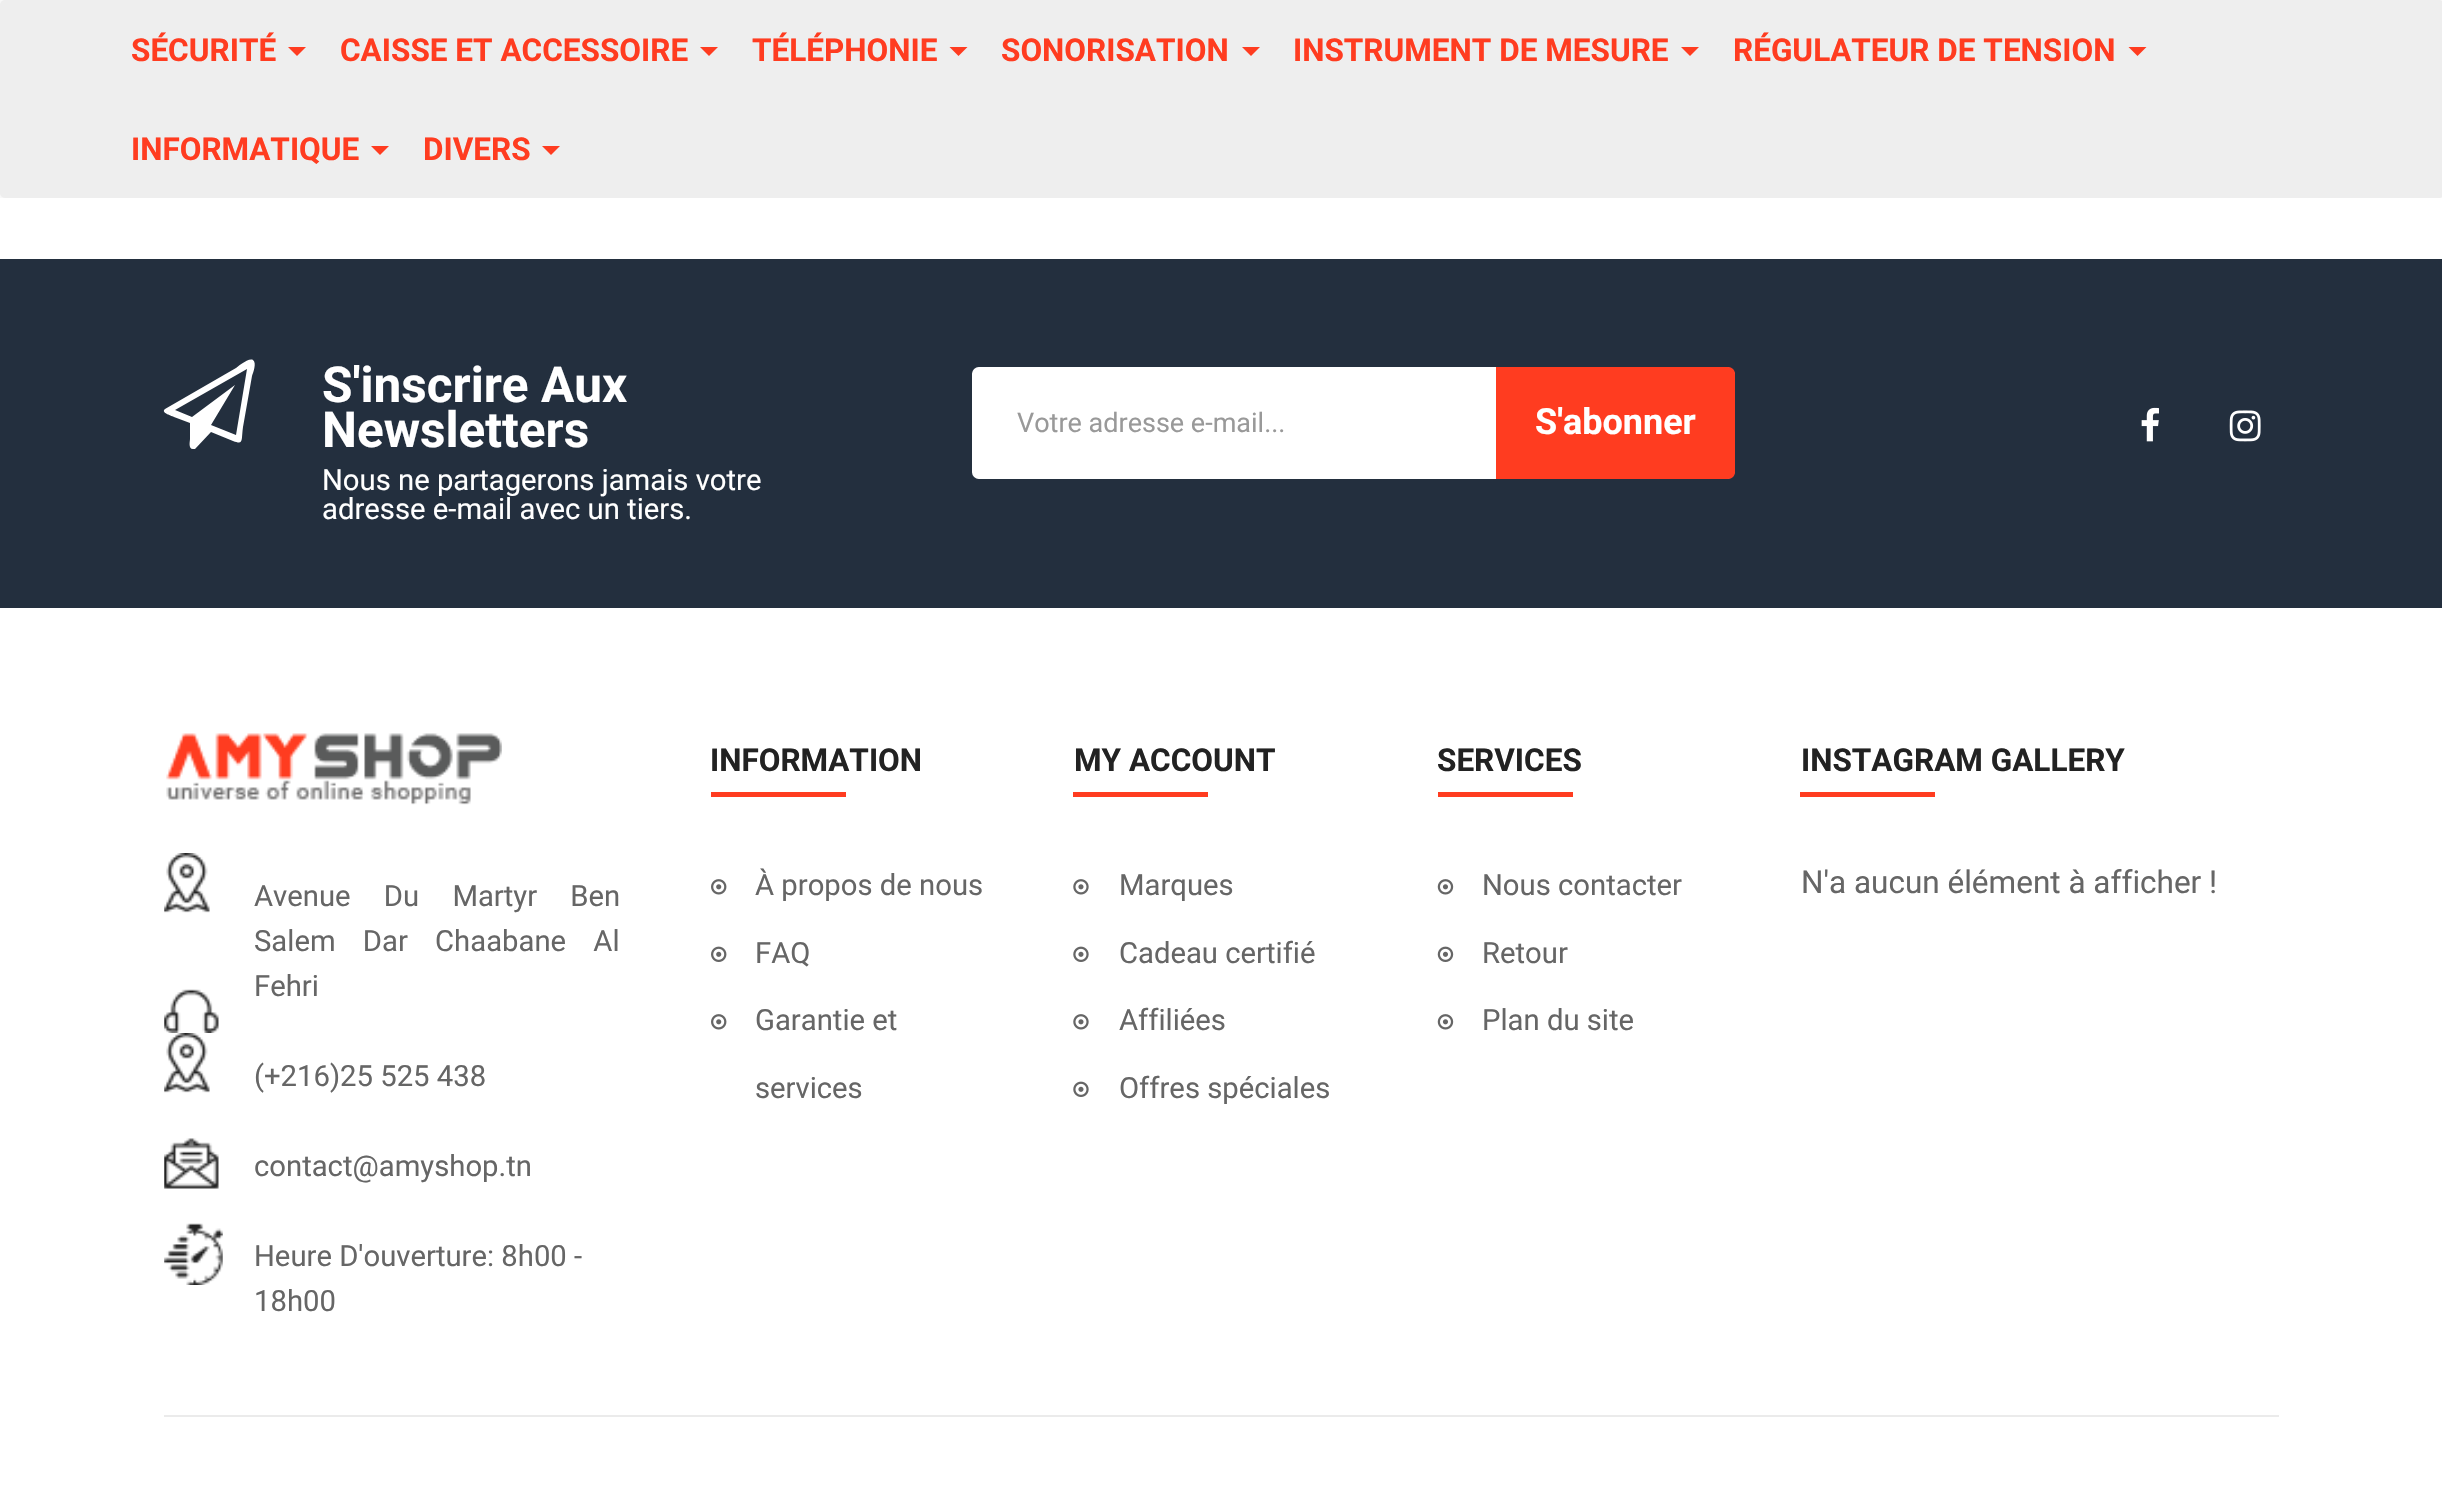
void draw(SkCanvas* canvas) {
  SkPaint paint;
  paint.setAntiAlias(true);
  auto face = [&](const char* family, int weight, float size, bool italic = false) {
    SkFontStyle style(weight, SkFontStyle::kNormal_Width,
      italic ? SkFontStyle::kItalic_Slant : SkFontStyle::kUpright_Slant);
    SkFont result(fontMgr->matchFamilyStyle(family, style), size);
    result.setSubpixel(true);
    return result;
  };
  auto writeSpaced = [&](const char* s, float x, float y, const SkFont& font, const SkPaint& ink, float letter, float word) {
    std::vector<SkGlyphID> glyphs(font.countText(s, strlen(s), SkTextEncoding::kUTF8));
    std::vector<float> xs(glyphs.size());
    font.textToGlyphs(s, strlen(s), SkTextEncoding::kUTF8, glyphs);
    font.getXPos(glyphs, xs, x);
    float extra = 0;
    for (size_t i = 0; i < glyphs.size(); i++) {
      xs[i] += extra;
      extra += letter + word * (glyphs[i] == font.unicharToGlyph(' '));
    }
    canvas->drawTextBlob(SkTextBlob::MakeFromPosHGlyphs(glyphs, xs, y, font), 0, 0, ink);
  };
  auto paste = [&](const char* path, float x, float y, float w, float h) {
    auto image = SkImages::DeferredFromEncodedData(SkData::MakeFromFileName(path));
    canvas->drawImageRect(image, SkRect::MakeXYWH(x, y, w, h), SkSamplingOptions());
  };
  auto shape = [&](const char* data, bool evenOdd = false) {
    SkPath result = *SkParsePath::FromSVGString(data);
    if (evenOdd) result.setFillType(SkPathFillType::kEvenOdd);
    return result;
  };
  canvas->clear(0xffffffff);
  paint.setColor(0xfff8f8f8);
  canvas->drawRect(SkRect::MakeXYWH(0, 0, 2442, 198), paint);
  paint.setColor(0xffeeeeee);
  canvas->drawRoundRect(SkRect::MakeXYWH(0, 0, 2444, 198), 5, 5, paint);
  paint.setColor(0xffff3c20);
  canvas->drawPath(shape("M288 47H306L297 56Z"), paint);
  canvas->drawPath(shape("M700 47H718L709 56Z"), paint);
  canvas->drawPath(shape("M949.5 47H967.5L958.5 56Z"), paint);
  canvas->drawPath(shape("M1242 47H1260L1251 56Z"), paint);
  canvas->drawPath(shape("M1681 47H1699L1690 56Z"), paint);
  canvas->drawPath(shape("M2128.5 47H2146.5L2137.5 56Z"), paint);
  canvas->drawPath(shape("M371 146H389L380 155Z"), paint);
  canvas->drawPath(shape("M542 146H560L551 155Z"), paint);
  paint.setColor(0xff232f3e);
  canvas->drawRect(SkRect::MakeXYWH(0, 259, 2442, 349), paint);
  paint.setColor(0xffffffff);
  canvas->drawPath(shape("M253 360C257 363 253 373 252 376L243 427C241 441 244 445 233 441L211 432L195 449H193C188 449 190 441 190 439V423L174 417C173 416 160 413 165 409L236 368C236 368 249 357 253 360ZM236 435L247 369L175 410L192 417L235 385L211 425Z"), paint);
  canvas->drawRoundRect(SkRect::MakeXYWH(972, 367, 763, 112), 9, 9, paint);
  canvas->drawRoundRect(SkRect::MakeXYWH(972, 367, 493, 112), 7, 7, paint);
  paint.setColor(0xffff3c20);
  canvas->drawPath(shape("M1496 367H1728C1732 367 1735 370 1735 374V472C1735 476 1732 479 1728 479H1496Z"), paint);
  paste("img/1.png", 2141, 407, 18, 35);
  paste("img/2.png", 2229, 410, 32, 32);
  canvas->drawRect(SkRect::MakeXYWH(711, 792, 135, 5), paint);
  paste("img/3.png", 711, 879, 16, 16);
  paste("img/4.png", 711, 946, 16, 16);
  paste("img/3.png", 711, 1014, 16, 16);
  canvas->drawRect(SkRect::MakeXYWH(1073, 792, 135, 5), paint);
  paste("img/5.png", 1073, 879, 16, 16);
  paste("img/6.png", 1073, 946, 16, 16);
  paste("img/5.png", 1073, 1014, 16, 16);
  paste("img/6.png", 1073, 1081, 16, 16);
  canvas->drawRect(SkRect::MakeXYWH(1438, 792, 135, 5), paint);
  paste("img/7.png", 1437, 879, 17, 16);
  paste("img/8.png", 1437, 946, 17, 16);
  paste("img/7.png", 1437, 1014, 17, 16);
  canvas->drawRect(SkRect::MakeXYWH(1800, 792, 135, 5), paint);
  paste("img/9.png", 166, 733, 336, 72);
  paste("img/10.png", 164, 853, 55, 180);
  paste("img/11.png", 164, 1033, 46, 60);
  paste("img/12.png", 164, 1138, 55, 51);
  paste("img/13.png", 164, 1223, 59, 62);
  paint.setColor(0xffebebeb);
  canvas->drawRect(SkRect::MakeXYWH(164, 1415, 2115, 2), paint);
  auto f0 = face("Roboto", 700, 31.5f);
  paint.setColor(0xffff3c20);
  {
    const struct { const char* s; float x, y; } items[] = {
      {"SÉCURITÉ", 131, 61},
      {"CAISSE ET ACCESSOIRE", 340, 61},
      {"TÉLÉPHONIE", 752, 61},
      {"SONORISATION", 1001, 61},
      {"INSTRUMENT DE MESURE", 1293, 61},
      {"RÉGULATEUR DE TENSION", 1733, 61},
      {"INFORMATIQUE", 131, 160},
      {"DIVERS", 423, 160},
    };
    for (auto [s, x, y] : items) {
      canvas->drawString(s, x, y, f0, paint);
    }
  }
  auto f1 = face("Roboto", 700, 49.5f);
  paint.setColor(0xffffffff);
  canvas->drawString("S'inscrire Aux", 322, 402, f1, paint);
  canvas->drawString("Newsletters", 322, 447, f1, paint);
  auto f2 = face("Roboto", 400, 29.25f);
  canvas->drawString("Nous ne partagerons jamais votre", 322, 490, f2, paint);
  canvas->drawString("adresse e-mail avec un tiers.", 322, 519, f2, paint);
  auto f3 = face("Roboto", 400, 27);
  paint.setColor(0xff999999);
  canvas->drawString("Votre adresse e-mail...", 1017, 432, f3, paint);
  auto f4 = face("Roboto", 700, 36);
  paint.setColor(0xffffffff);
  canvas->drawString("S'abonner", 1535, 434, f4, paint);
  paint.setColor(0xff222222);
  canvas->drawString("INFORMATION", 710, 771, f0, paint);
  paint.setColor(0xff666666);
  {
    const struct { const char* s; float x, y; } items[] = {
      {"À propos de nous", 755, 895},
      {"FAQ", 755, 963},
      {"Garantie et", 755, 1030},
      {"services", 755, 1098},
    };
    for (auto [s, x, y] : items) {
      canvas->drawString(s, x, y, f2, paint);
    }
  }
  paint.setColor(0xff222222);
  canvas->drawString("MY ACCOUNT", 1074, 771, f0, paint);
  paint.setColor(0xff666666);
  {
    const struct { const char* s; float x, y; } items[] = {
      {"Marques", 1119, 895},
      {"Cadeau certifié", 1119, 963},
      {"Affiliées", 1119, 1030},
      {"Offres spéciales", 1119, 1098},
    };
    for (auto [s, x, y] : items) {
      canvas->drawString(s, x, y, f2, paint);
    }
  }
  paint.setColor(0xff222222);
  canvas->drawString("SERVICES", 1437, 771, f0, paint);
  paint.setColor(0xff666666);
  {
    const struct { const char* s; float x, y; } items[] = {
      {"Nous contacter", 1482, 895},
      {"Retour", 1482, 963},
      {"Plan du site", 1482, 1030},
    };
    for (auto [s, x, y] : items) {
      canvas->drawString(s, x, y, f2, paint);
    }
  }
  paint.setColor(0xff222222);
  canvas->drawString("INSTAGRAM GALLERY", 1801, 771, f0, paint);
  auto f5 = face("Roboto", 400, 31.5f);
  paint.setColor(0xff666666);
  canvas->drawString("N'a aucun élément à afficher !", 1801, 893, f5, paint);
  writeSpaced("Avenue Du Martyr Ben", 254, 906, f2, paint, 0, 26);
  writeSpaced("Salem Dar Chaabane Al", 254, 951, f2, paint, 0, 20);
  {
    const struct { const char* s; float x, y; } items[] = {
      {"Fehri", 254, 996},
      {"(+216)25 525 438", 254, 1086},
      {"contact@amyshop.tn", 254, 1176},
      {"Heure D'ouverture: 8h00 -", 254, 1266},
      {"18h00", 254, 1311},
    };
    for (auto [s, x, y] : items) {
      canvas->drawString(s, x, y, f2, paint);
    }
  }
}
